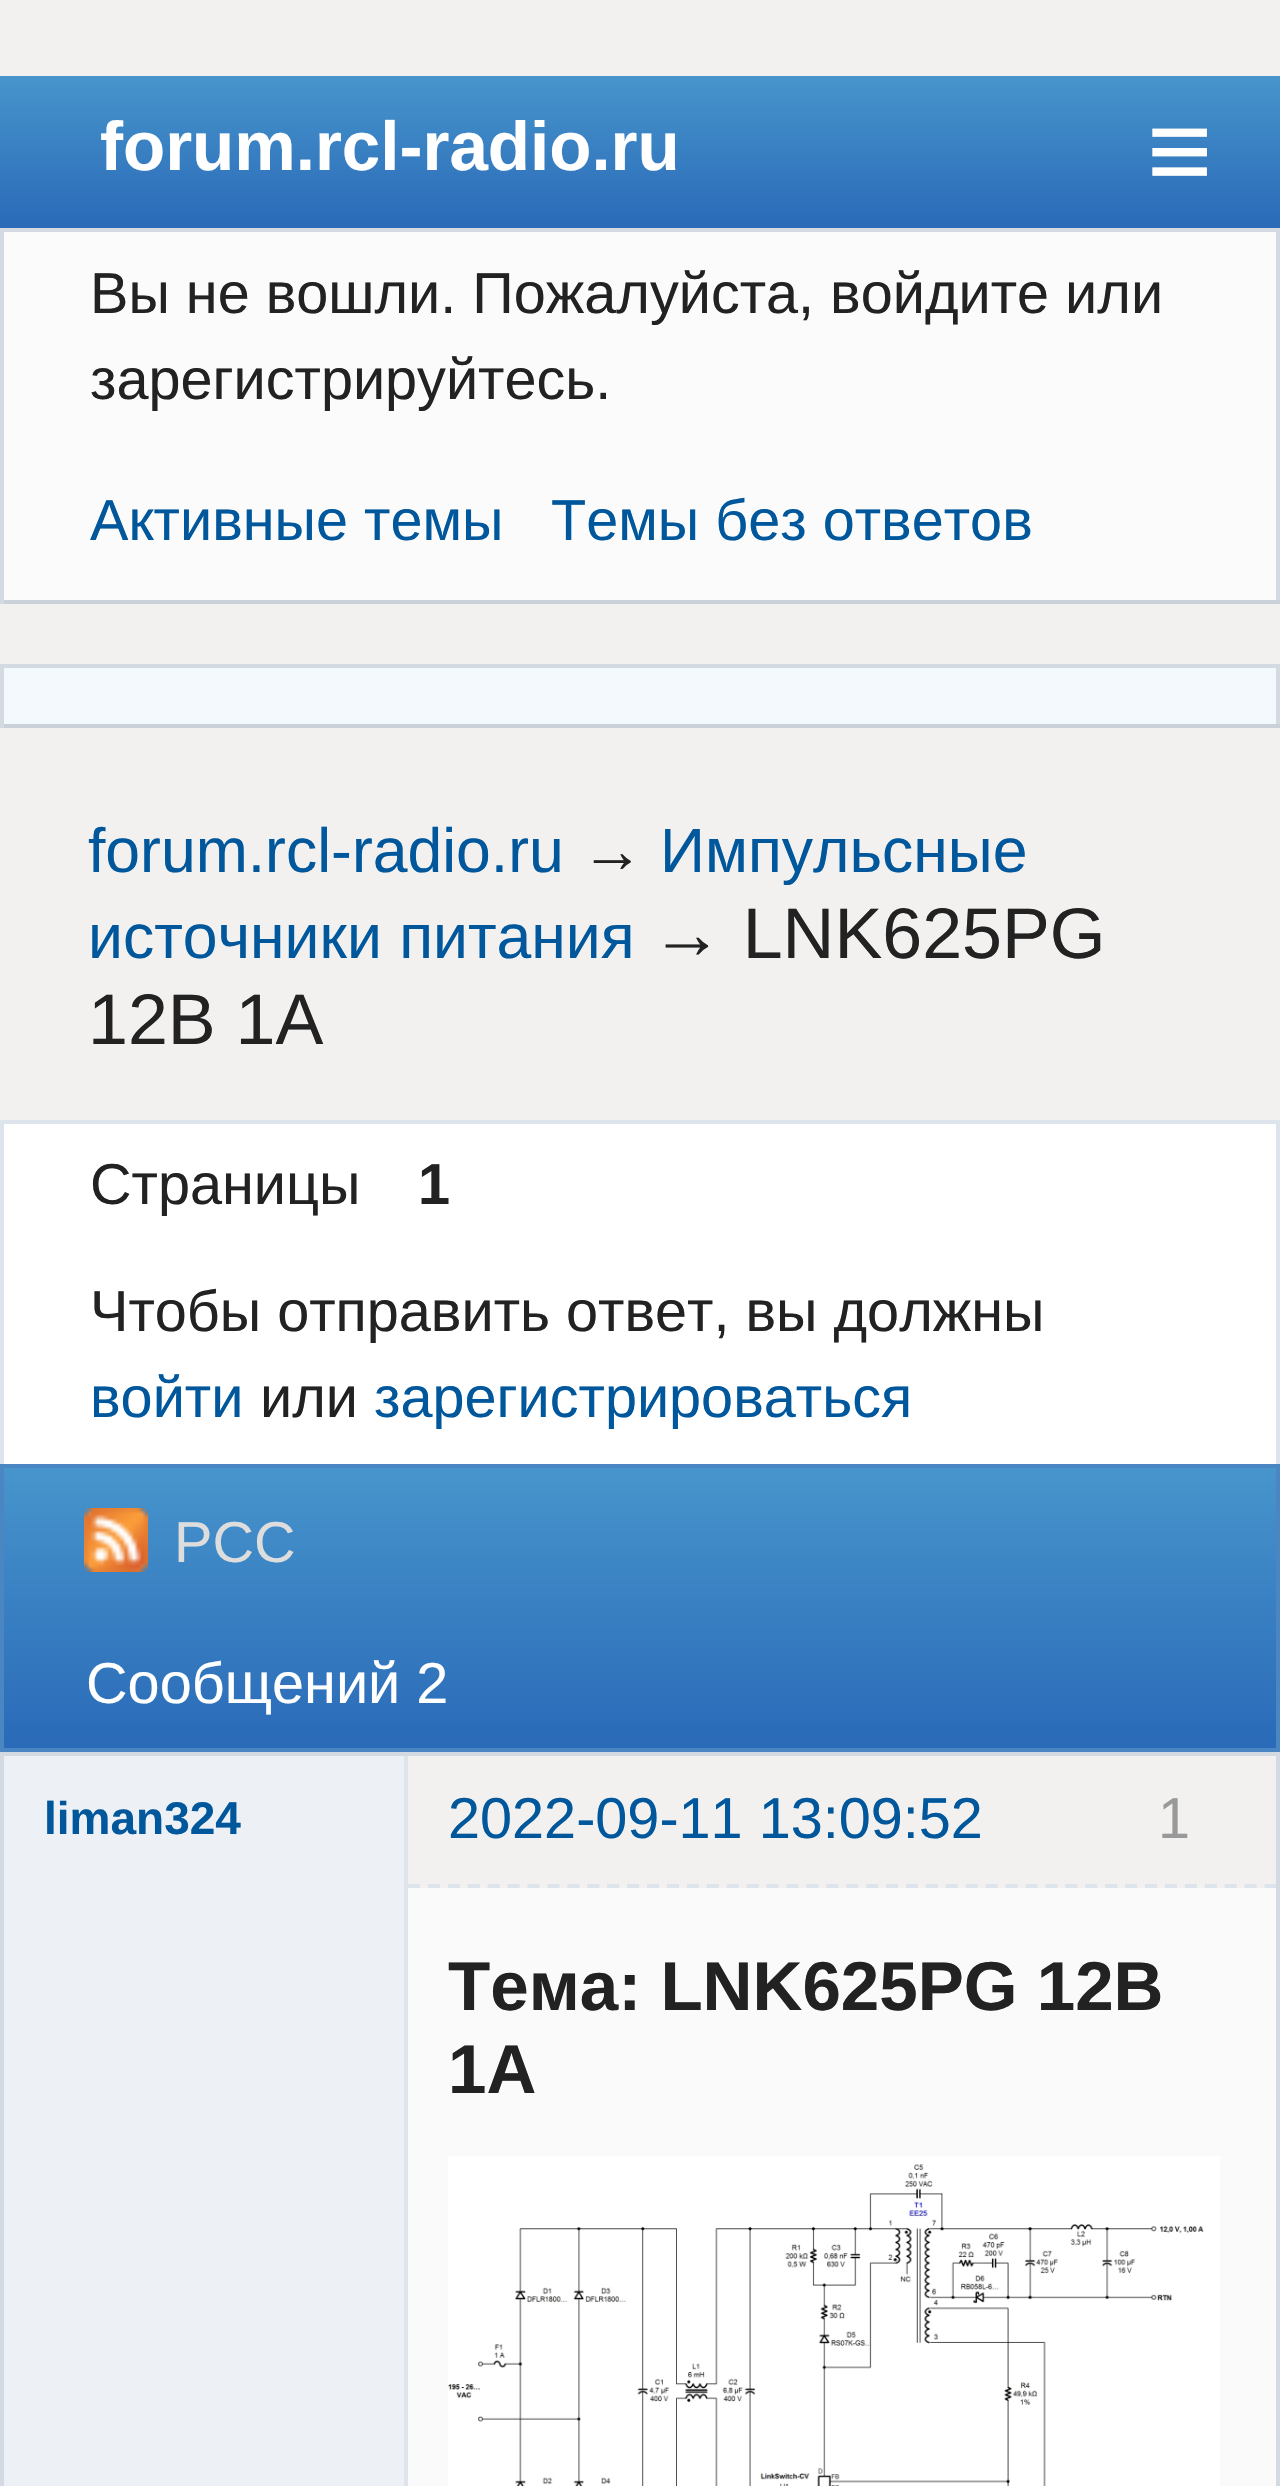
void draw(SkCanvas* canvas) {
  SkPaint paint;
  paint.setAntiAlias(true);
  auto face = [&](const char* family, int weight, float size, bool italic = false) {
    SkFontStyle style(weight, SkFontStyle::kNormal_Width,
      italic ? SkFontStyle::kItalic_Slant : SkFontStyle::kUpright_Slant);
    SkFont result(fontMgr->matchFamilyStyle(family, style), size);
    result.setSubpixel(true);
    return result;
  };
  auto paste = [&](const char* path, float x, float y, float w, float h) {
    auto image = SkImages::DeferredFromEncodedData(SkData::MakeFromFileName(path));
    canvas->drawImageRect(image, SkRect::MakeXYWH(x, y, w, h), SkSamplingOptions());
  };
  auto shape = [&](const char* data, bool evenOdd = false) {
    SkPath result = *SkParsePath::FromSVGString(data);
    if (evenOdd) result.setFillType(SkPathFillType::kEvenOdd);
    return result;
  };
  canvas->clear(0xfff2f1f0);
  {
    const SkColor colors[] = {0xff2a6ab8, 0xff4795cc};
    const float stops[] = {0, 1};
    const SkPoint ends[] = {{640, 228}, {640, 76}};
    paint.setShader(SkGradientShader::MakeLinear(ends, colors, stops, 2, SkTileMode::kClamp));
    paint.setAlpha(255);
  }
  canvas->drawRect(SkRect::MakeXYWH(0, 76, 1280, 152), paint);
  paint.setShader(nullptr);
  {
    const struct { float x, y, w, h; SkColor color; } items[] = {
      {4, 232, 1272, 368, 0xfffbfbfb},
      {0, 228, 1280, 4, 0xffd3dae1},
      {1276, 228, 4, 376, 0xffd3dae1},
      {0, 600, 1280, 4, 0xffcbd1d8},
      {0, 228, 4, 376, 0xffd3dae1},
      {4, 668, 1272, 56, 0xfff4f9fd},
      {0, 664, 1280, 4, 0xffd3dae1},
      {1276, 664, 4, 64, 0xffd3dae1},
      {0, 724, 1280, 4, 0xffcbd1d8},
      {0, 664, 4, 64, 0xffd3dae1},
      {4, 1124, 1272, 340, 0xffffffff},
      {0, 1120, 1280, 4, 0xffdde4eb},
      {1276, 1120, 4, 344, 0xffdde4eb},
      {0, 1120, 4, 344, 0xffdde4eb},
    };
    for (auto [x, y, w, h, color] : items) {
      paint.setColor(color);
      canvas->drawRect(SkRect::MakeXYWH(x, y, w, h), paint);
    }
  }
  {
    const SkColor colors[] = {0xff2a6ab8, 0xff4795cc};
    const float stops[] = {0, 1};
    const SkPoint ends[] = {{640, 1748}, {640, 1468}};
    paint.setShader(SkGradientShader::MakeLinear(ends, colors, stops, 2, SkTileMode::kClamp));
    paint.setAlpha(255);
  }
  canvas->drawRect(SkRect::MakeXYWH(4, 1468, 1272, 280), paint);
  paint.setStroke(true);
  paint.setStrokeWidth(4);
  paint.setShader(nullptr);
  paint.setColor(0xff4a86c1);
  canvas->drawRect(SkRect::MakeXYWH(2, 1466, 1276, 284), paint);
  paste("img/1.png", 84, 1508, 64, 64);
  paint.setStroke(false);
  {
    const struct { float x, y, w, h; SkColor color; } items[] = {
      {0, 1752, 1280, 4, 0xffd3dae1},
      {1276, 1752, 4, 734, 0xffd3dae1},
      {0, 1752, 4, 734, 0xffd3dae1},
      {4, 1756, 400, 730, 0xffedf1f5},
      {408, 1888, 868, 598, 0xfffafafa},
      {404, 1756, 4, 730, 0xffdde4eb},
    };
    for (auto [x, y, w, h, color] : items) {
      paint.setColor(color);
      canvas->drawRect(SkRect::MakeXYWH(x, y, w, h), paint);
    }
  }
  paint.setStroke(true);
  paint.setPathEffect(SkDashPathEffect::Make({{12, 7.92f}}, 0));
  canvas->drawPath(shape("M408 1886H1276"), paint);
  paint.setPathEffect(nullptr);
  paste("img/2.png", 448, 2156, 772, 330);
  auto f0 = face("Liberation Sans", 700, 69.1f);
  paint.setStroke(false);
  paint.setColor(0xffffffff);
  canvas->drawString("forum.rcl-radio.ru", 100, 170, f0, paint);
  auto f1 = face("Liberation Sans", 400, 112);
  canvas->drawString("≡", 1147, 189, f1, paint);
  auto f2 = face("Liberation Sans", 400, 57.6f);
  paint.setColor(0xff222222);
  canvas->drawString("Вы не вошли. Пожалуйста, войдите или", 90, 313, f2, paint);
  canvas->drawString("зарегистрируйтесь.", 90, 399, f2, paint);
  paint.setColor(0xff00579c);
  canvas->drawString("Активные темы", 90, 540, f2, paint);
  canvas->drawString("Темы без ответов", 551, 540, f2, paint);
  auto f3 = face("Liberation Sans", 400, 62.5f);
  canvas->drawString("forum.rcl-radio.ru", 88, 872, f3, paint);
  paint.setColor(0xff222222);
  canvas->drawString("→", 581, 872, f3, paint);
  paint.setColor(0xff00579c);
  canvas->drawString("Импульсные", 660, 872, f3, paint);
  canvas->drawString("источники питания", 88, 958, f3, paint);
  auto f4 = face("Liberation Sans", 400, 71.75f);
  paint.setColor(0xff222222);
  canvas->drawString("→ LNK625PG", 651, 958, f4, paint);
  canvas->drawString("12В 1А", 88, 1044, f4, paint);
  canvas->drawString("Страницы", 90, 1204, f2, paint);
  auto f5 = face("Liberation Sans", 700, 57.6f);
  canvas->drawString("1", 418, 1204, f5, paint);
  canvas->drawString("Чтобы отправить ответ, вы должны", 90, 1331, f2, paint);
  paint.setColor(0xff00579c);
  canvas->drawString("войти", 90, 1417, f2, paint);
  paint.setColor(0xff222222);
  canvas->drawString("или", 260, 1417, f2, paint);
  paint.setColor(0xff00579c);
  canvas->drawString("зарегистрироваться", 374, 1417, f2, paint);
  paint.setColor(0xffdddddd);
  canvas->drawString("РСС", 174, 1562, f2, paint);
  paint.setColor(0xffffffff);
  canvas->drawString("Сообщений 2", 86, 1703, f2, paint);
  auto f6 = face("Liberation Sans", 700, 46);
  paint.setColor(0xff00579c);
  canvas->drawString("liman324", 44, 1834, f6, paint);
  canvas->drawString("2022-09-11 13:09:52", 448, 1838, f2, paint);
  paint.setColor(0xff999999);
  canvas->drawString("1", 1158, 1838, f2, paint);
  paint.setColor(0xff222222);
  canvas->drawString("Тема: LNK625PG 12В", 448, 2010, f0, paint);
  canvas->drawString("1А", 448, 2093, f0, paint);
}
